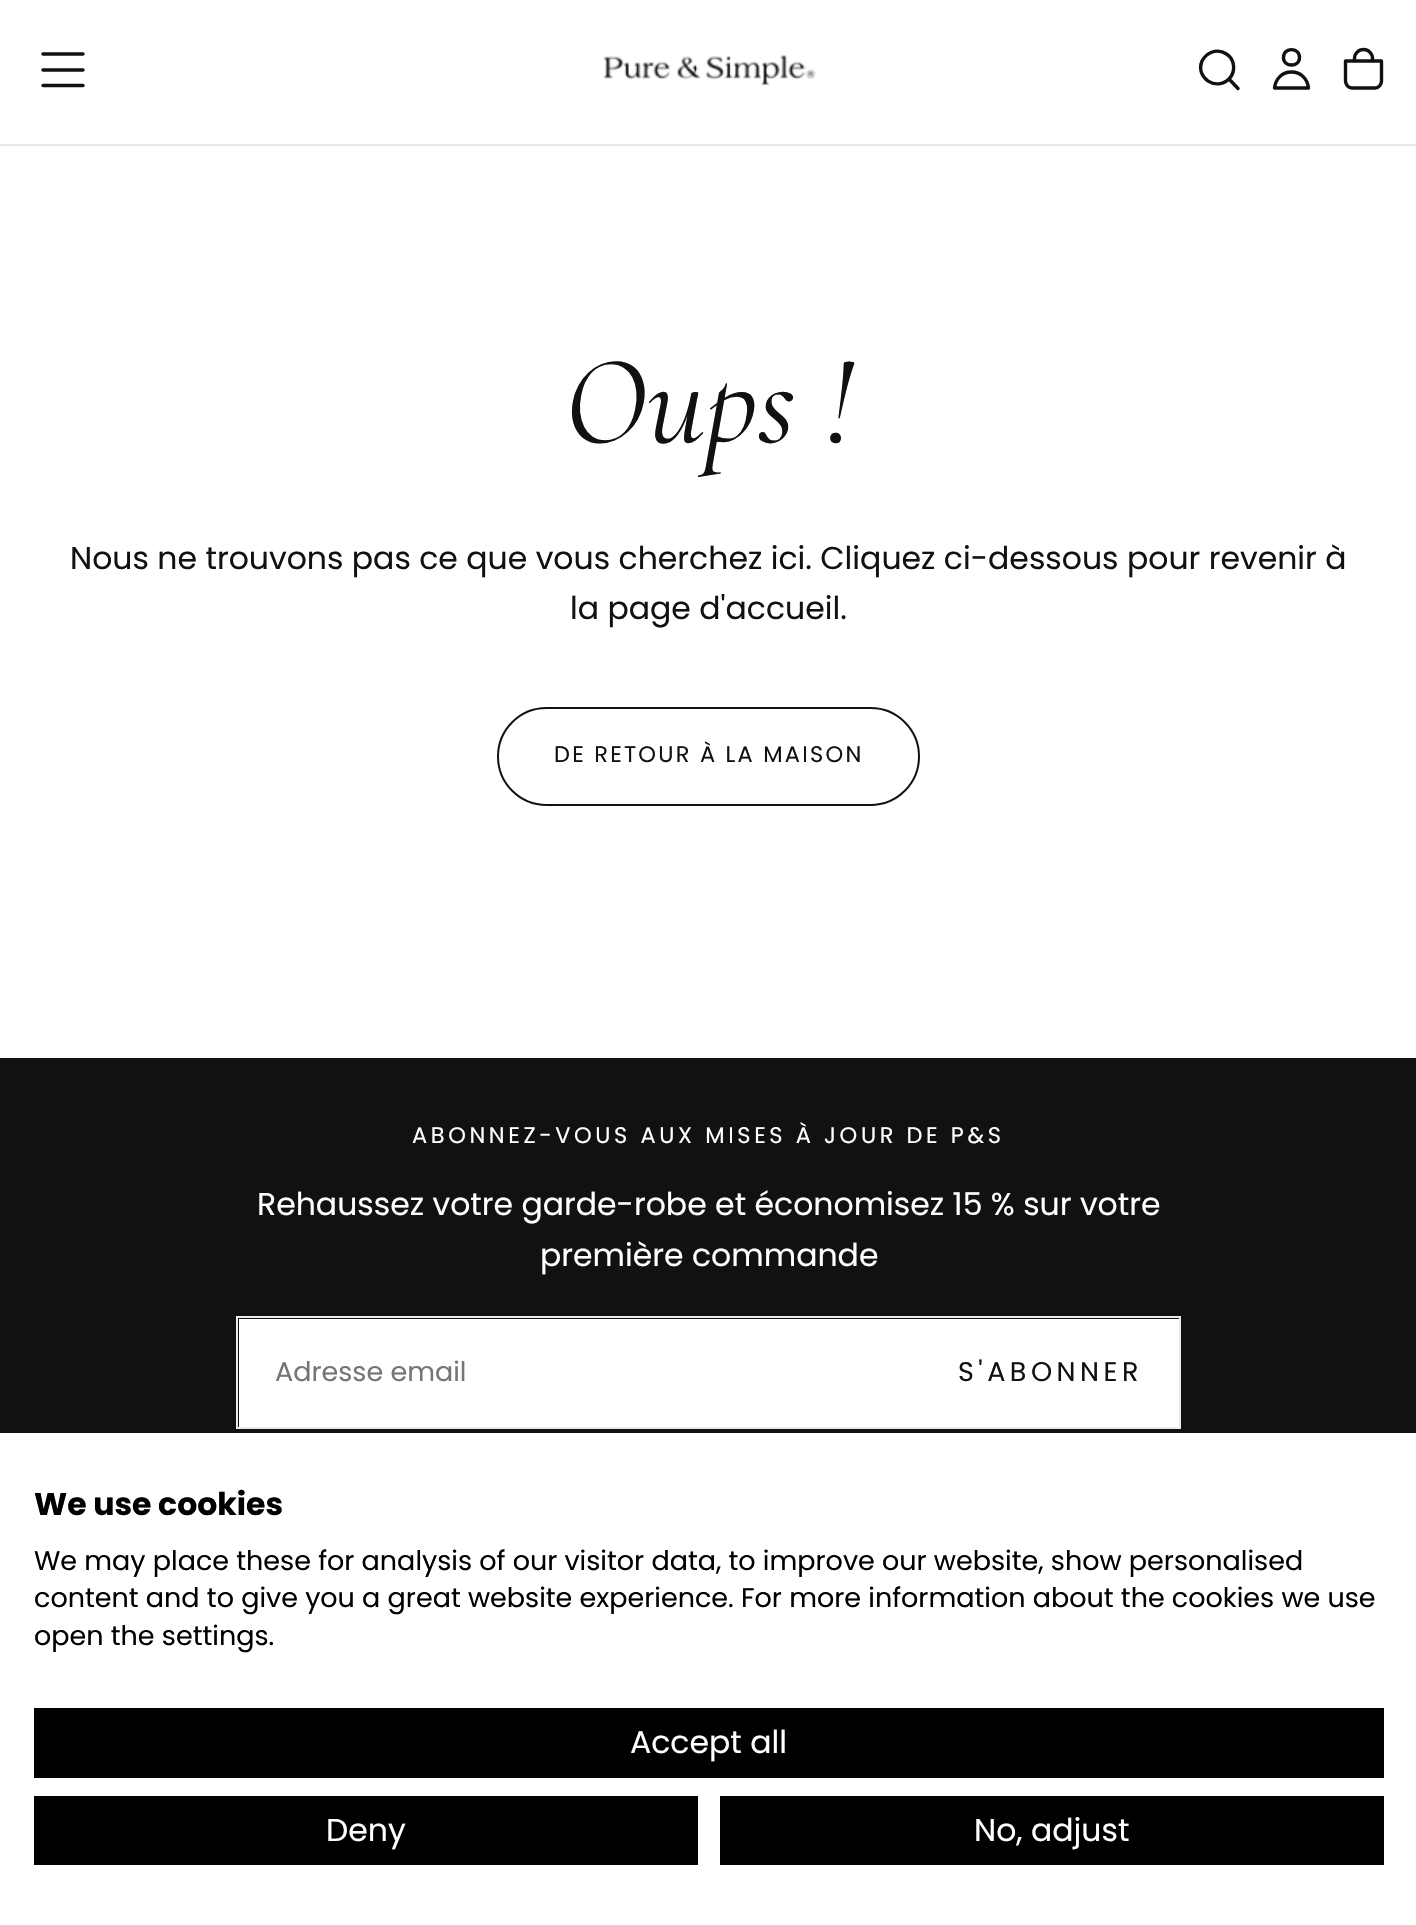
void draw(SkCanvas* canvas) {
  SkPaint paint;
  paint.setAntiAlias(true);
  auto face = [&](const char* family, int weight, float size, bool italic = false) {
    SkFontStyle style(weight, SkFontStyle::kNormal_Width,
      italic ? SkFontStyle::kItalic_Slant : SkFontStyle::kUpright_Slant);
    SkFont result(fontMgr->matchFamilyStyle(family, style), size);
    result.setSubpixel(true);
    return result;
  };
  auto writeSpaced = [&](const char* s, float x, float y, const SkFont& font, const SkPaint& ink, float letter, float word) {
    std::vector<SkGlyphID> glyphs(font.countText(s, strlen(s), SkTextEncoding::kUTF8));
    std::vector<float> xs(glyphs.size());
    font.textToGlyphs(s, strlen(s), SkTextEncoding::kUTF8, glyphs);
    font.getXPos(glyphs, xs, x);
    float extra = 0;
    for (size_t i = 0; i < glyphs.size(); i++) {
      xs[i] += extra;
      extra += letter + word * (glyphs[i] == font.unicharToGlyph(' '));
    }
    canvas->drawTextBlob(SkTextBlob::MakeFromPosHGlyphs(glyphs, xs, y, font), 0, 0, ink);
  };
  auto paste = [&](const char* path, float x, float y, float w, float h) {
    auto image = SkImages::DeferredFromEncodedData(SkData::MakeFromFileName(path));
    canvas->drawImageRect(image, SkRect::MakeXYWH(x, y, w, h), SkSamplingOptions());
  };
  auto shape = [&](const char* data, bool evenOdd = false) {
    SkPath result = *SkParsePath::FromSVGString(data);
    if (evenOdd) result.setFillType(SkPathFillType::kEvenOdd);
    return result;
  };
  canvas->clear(0xffffffff);
  paint.setColor(0xffe7e7e7);
  canvas->drawRect(SkRect::MakeXYWH(0, 144, 1416, 2), paint);
  paint.setStroke(true);
  paint.setStrokeWidth(3.4f);
  paint.setStrokeCap(SkPaint::kRound_Cap);
  paint.setColor(0xff111111);
  canvas->drawPath(shape("M43 70H83M43 54H83M43 85.5H83"), paint);
  paste("img/1.png", 603, 55, 213, 30);
  paint.setStrokeJoin(SkPaint::kRound_Join);
  canvas->drawPath(shape("M1238 88.5L1229 79M1229 79C1236 72 1235 59.5 1226.5 54C1222 51 1216 50.5 1211 52.5C1207 54 1204 57.5 1202 61C1195 78 1216.5 91.5 1229 79Z"), paint);
  paint.setStrokeCap(SkPaint::kButt_Cap);
  canvas->drawPath(shape("M1299.5 57.5C1299.5 67.5 1283.5 67.5 1283.5 57.5C1283.5 47 1299.5 47 1299.5 57.5ZM1291.5 72C1282 72 1275.5 79 1274.5 88H1308.5C1307.5 79 1301 72 1291.5 72Z"), paint);
  canvas->drawPath(shape("M1345.5 61H1381.5V81C1381.5 84.5 1378.5 88 1375 88H1352C1348.5 88 1345.5 84.5 1345.5 81ZM1354.5 61V58.5C1354.5 53.5 1358.5 49.5 1363.5 49.5C1368.5 49.5 1372.5 53.5 1372.5 58.5V61"), paint);
  paint.setStrokeWidth(2);
  paint.setStrokeJoin(SkPaint::kMiter_Join);
  canvas->drawRoundRect(SkRect::MakeXYWH(498, 708, 421, 97), 48.5f, 48.5f, paint);
  paint.setStroke(false);
  canvas->drawRect(SkRect::MakeXYWH(0, 1058, 1416, 375), paint);
  paint.setStroke(true);
  paint.setColor(0xffebebeb);
  canvas->drawRect(SkRect::MakeXYWH(237, 1317, 943, 111), paint);
  paint.setStroke(false);
  {
    const struct { float x, y, w, h; SkColor color; } items[] = {
      {239, 1319, 940, 108, 0xffffffff},
      {34, 1708, 1350, 70, 0xff000000},
      {34, 1796, 664, 69, 0xff000000},
      {720, 1796, 664, 69, 0xff000000},
    };
    for (auto [x, y, w, h, color] : items) {
      paint.setColor(color);
      canvas->drawRect(SkRect::MakeXYWH(x, y, w, h), paint);
    }
  }
  auto f0 = face("Cormorant", 400, 127, true);
  paint.setColor(0xff111111);
  canvas->drawString("Oups !", 564, 442, f0, paint);
  auto f1 = face("Poppins", 400, 31.5f);
  canvas->drawString("Nous ne trouvons pas ce que vous cherchez ici. Cliquez ci-dessous pour revenir à", 70, 569, f1, paint);
  canvas->drawString("la page d'accueil.", 570, 619, f1, paint);
  auto f2 = face("Poppins", 400, 22.5f);
  writeSpaced("DE RETOUR À LA MAISON", 554, 762, f2, paint, 2.25f, 0);
  paint.setColor(0xffffffff);
  writeSpaced("ABONNEZ-VOUS AUX MISES À JOUR DE P&S", 412, 1143, f2, paint, 3.6f, 0);
  canvas->drawString("Rehaussez votre garde-robe et économisez 15 % sur votre", 257, 1215, f1, paint);
  canvas->drawString("première commande", 540, 1266, f1, paint);
  auto f3 = face("Poppins", 400, 27);
  paint.setColor(0xff757575);
  canvas->drawString("Adresse email", 275, 1381, f3, paint);
  paint.setColor(0xff111111);
  writeSpaced("S'ABONNER", 958, 1381, f3, paint, 4.5f, 0);
  auto f4 = face("Poppins", 700, 31.5f);
  paint.setColor(0xff000000);
  canvas->drawString("We use cookies", 34, 1515, f4, paint);
  {
    const struct { const char* s; float x, y; } items[] = {
      {"We may place these for analysis of our visitor data, to improve our website, show personalised", 34, 1570},
      {"content and to give you a great website experience. For more information about the cookies we use", 34, 1607},
      {"open the settings.", 34, 1645},
    };
    for (auto [s, x, y] : items) {
      canvas->drawString(s, x, y, f3, paint);
    }
  }
  paint.setColor(0xffffffff);
  {
    const struct { const char* s; float x, y; } items[] = {
      {"Accept all", 630, 1753},
      {"Deny", 326, 1841},
      {"No, adjust", 974, 1841},
    };
    for (auto [s, x, y] : items) {
      canvas->drawString(s, x, y, f1, paint);
    }
  }
}
